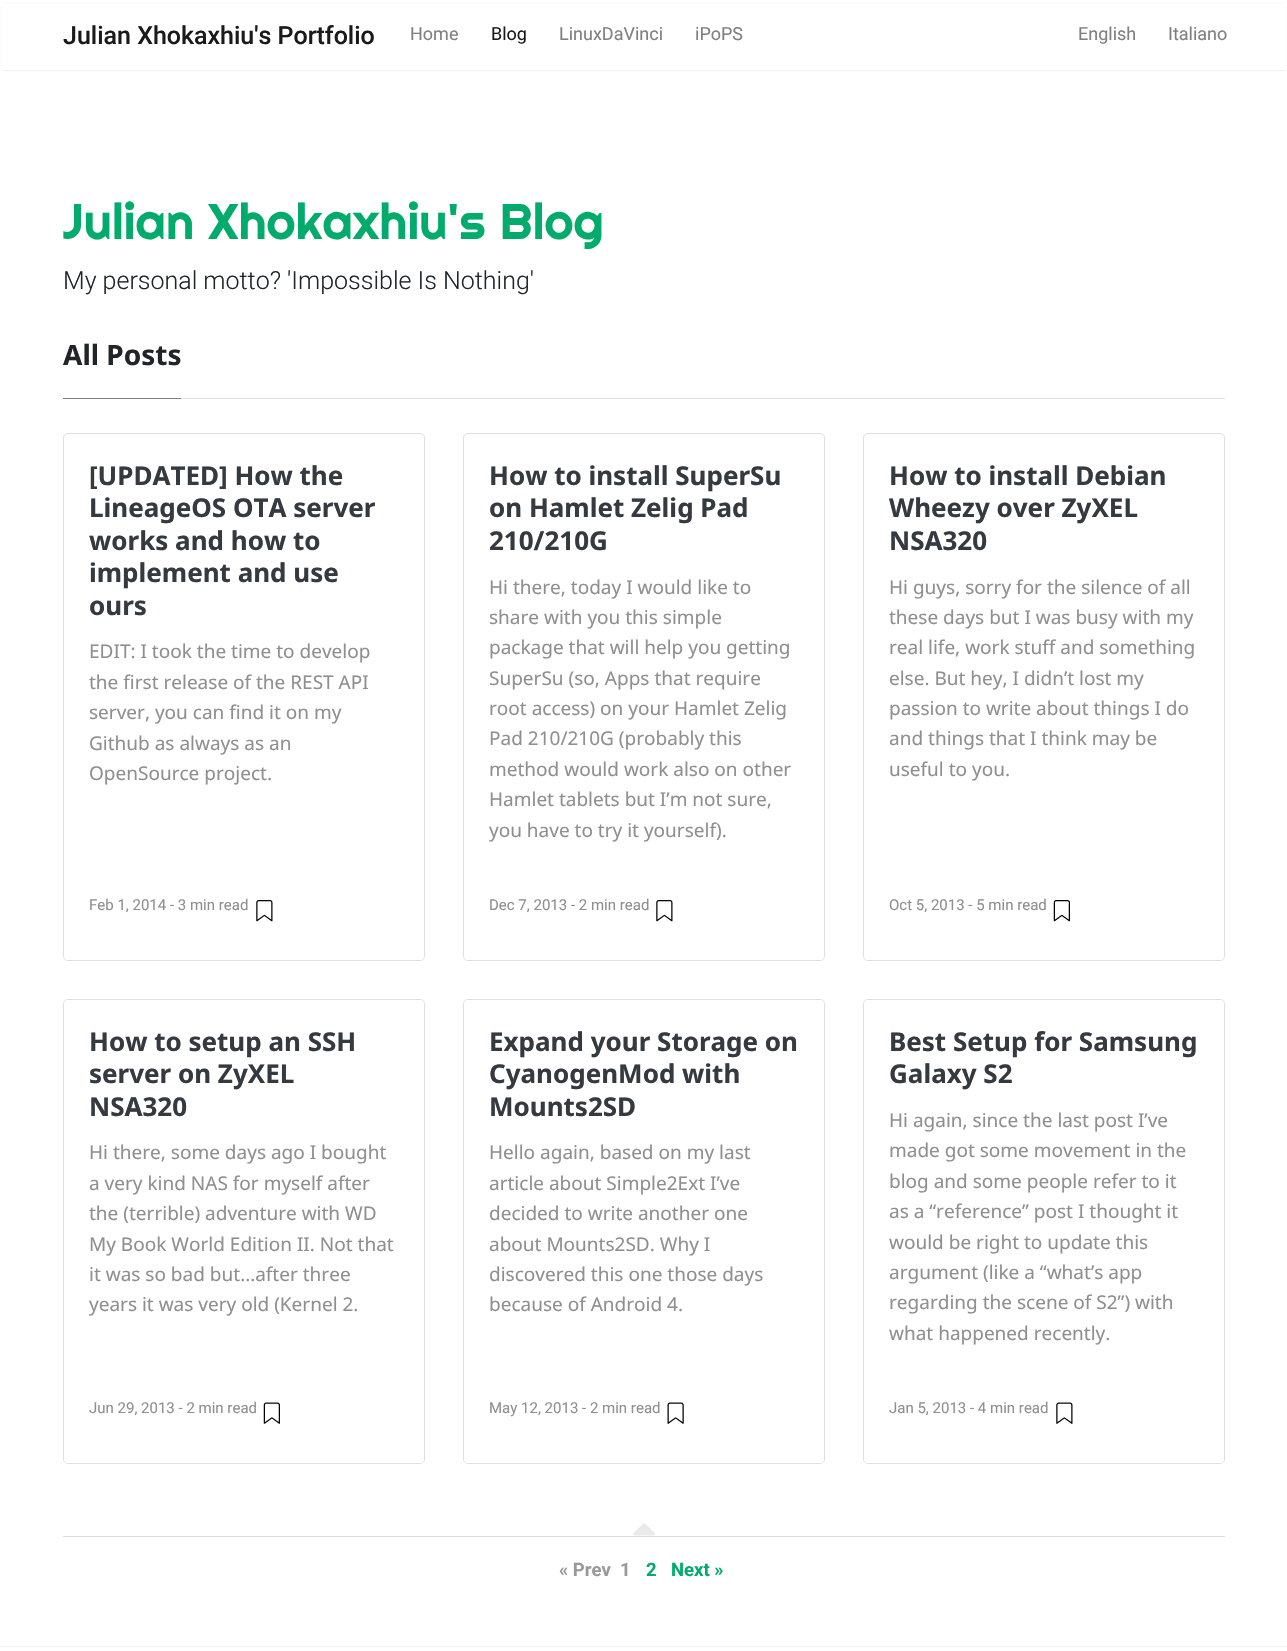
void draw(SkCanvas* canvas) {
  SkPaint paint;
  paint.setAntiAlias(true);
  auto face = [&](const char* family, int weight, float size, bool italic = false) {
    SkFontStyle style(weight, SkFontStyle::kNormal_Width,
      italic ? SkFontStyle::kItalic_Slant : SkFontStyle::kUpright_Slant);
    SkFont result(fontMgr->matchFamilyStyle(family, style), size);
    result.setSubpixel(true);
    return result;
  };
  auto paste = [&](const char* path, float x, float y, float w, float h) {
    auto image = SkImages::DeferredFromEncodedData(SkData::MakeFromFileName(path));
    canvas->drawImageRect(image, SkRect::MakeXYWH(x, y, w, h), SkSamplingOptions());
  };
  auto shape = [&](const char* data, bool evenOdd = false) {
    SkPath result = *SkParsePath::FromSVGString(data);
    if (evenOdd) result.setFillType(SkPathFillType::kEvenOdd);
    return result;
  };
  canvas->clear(0xffffffff);
  paint.setColor(0x26000000);
  paint.setMaskFilter(SkMaskFilter::MakeBlur(kNormal_SkBlurStyle, 1));
  canvas->drawRect(SkRect::MakeXYWH(3, 5, 1282, 65), paint);
  paint.setMaskFilter(nullptr);
  {
    const struct { float x, y, w, h; SkColor color; } items[] = {
      {2, 4, 1284, 66, 0xffffffff},
      {181, 398, 1044, 1, 0xffdfdfdf},
      {63, 398, 118, 1, 0xff7d7d7d},
    };
    for (auto [x, y, w, h, color] : items) {
      paint.setColor(color);
      canvas->drawRect(SkRect::MakeXYWH(x, y, w, h), paint);
    }
  }
  paint.setStroke(true);
  paint.setStrokeWidth(1);
  paint.setColor(0xffdfdfdf);
  canvas->drawRoundRect(SkRect::MakeXYWH(63.5f, 433.5f, 361, 527), 4.5f, 4.5f, paint);
  paint.setStroke(false);
  paint.setColor(0xffffffff);
  canvas->drawPath(shape("M64 870H424V956C424 958 422 960 420 960H68C66 960 64 958 64 956Z"), paint);
  paste("img/1.png", 256, 900, 17, 22);
  paint.setStroke(true);
  paint.setColor(0xffdfdfdf);
  canvas->drawRoundRect(SkRect::MakeXYWH(463.5f, 433.5f, 361, 527), 4.5f, 4.5f, paint);
  paint.setStroke(false);
  paint.setColor(0xffffffff);
  canvas->drawPath(shape("M464 870H824V956C824 958 822 960 820 960H468C466 960 464 958 464 956Z"), paint);
  paste("img/1.png", 656, 900, 17, 22);
  paint.setStroke(true);
  paint.setColor(0xffdfdfdf);
  canvas->drawRoundRect(SkRect::MakeXYWH(863.5f, 433.5f, 361, 527), 4.5f, 4.5f, paint);
  paint.setStroke(false);
  paint.setColor(0xffffffff);
  canvas->drawPath(shape("M864 870H1224V956C1224 958 1222 960 1220 960H868C866 960 864 958 864 956Z"), paint);
  paste("img/2.png", 1053, 900, 17, 22);
  paint.setStroke(true);
  paint.setColor(0xffdfdfdf);
  canvas->drawRoundRect(SkRect::MakeXYWH(63.5f, 999.5f, 361, 464), 4.5f, 4.5f, paint);
  paint.setStroke(false);
  paint.setColor(0xffffffff);
  canvas->drawPath(shape("M64 1373H424V1459C424 1461 422 1463 420 1463H68C66 1463 64 1461 64 1459Z"), paint);
  paste("img/3.png", 263, 1402, 17, 22);
  paint.setStroke(true);
  paint.setColor(0xffdfdfdf);
  canvas->drawRoundRect(SkRect::MakeXYWH(463.5f, 999.5f, 361, 464), 4.5f, 4.5f, paint);
  paint.setStroke(false);
  paint.setColor(0xffffffff);
  canvas->drawPath(shape("M464 1373H824V1459C824 1461 822 1463 820 1463H468C466 1463 464 1461 464 1459Z"), paint);
  paste("img/4.png", 667, 1402, 17, 22);
  paint.setStroke(true);
  paint.setColor(0xffdfdfdf);
  canvas->drawRoundRect(SkRect::MakeXYWH(863.5f, 999.5f, 361, 464), 4.5f, 4.5f, paint);
  paint.setStroke(false);
  paint.setColor(0xffffffff);
  canvas->drawPath(shape("M864 1373H1224V1459C1224 1461 1222 1463 1220 1463H868C866 1463 864 1461 864 1459Z"), paint);
  paste("img/5.png", 1056, 1402, 17, 22);
  paste("img/6.png", 633, 1523, 22, 13);
  paint.setColor(0xffdddddd);
  canvas->drawRect(SkRect::MakeXYWH(63, 1536, 1162, 1), paint);
  paint.setColor(0xfff2f2f2);
  canvas->drawRect(SkRect::MakeXYWH(0, 1646, 1287, 1), paint);
  auto f0 = face("Roboto", 500, 25);
  paint.setColor(0xff1a1a1a);
  canvas->drawString("Julian Xhokaxhiu's Portfolio", 63, 44, f0, paint);
  auto f1 = face("Roboto", 400, 18);
  paint.setColor(0xff808080);
  canvas->drawString("Home", 410, 40, f1, paint);
  paint.setColor(0xff1a1a1a);
  canvas->drawString("Blog", 491, 40, f1, paint);
  paint.setColor(0xff808080);
  {
    const struct { const char* s; float x, y; } items[] = {
      {"LinuxDaVinci", 559, 40},
      {"iPoPS", 695, 40},
      {"English", 1078, 40},
      {"Italiano", 1168, 40},
    };
    for (auto [s, x, y] : items) {
      canvas->drawString(s, x, y, f1, paint);
    }
  }
  auto f2 = face("Righteous", 400, 50);
  paint.setColor(0xff00ab6b);
  canvas->drawString("Julian Xhokaxhiu's Blog", 63, 239, f2, paint);
  auto f3 = face("Roboto", 300, 25);
  paint.setColor(0xff212529);
  canvas->drawString("My personal motto? 'Impossible Is Nothing'", 63, 289, f3, paint);
  auto f4 = face("Noto Sans", 700, 28);
  canvas->drawString("All Posts", 63, 365, f4, paint);
  auto f5 = face("Noto Sans", 700, 26);
  paint.setColor(0xff343a40);
  {
    const struct { const char* s; float x, y; } items[] = {
      {"[UPDATED] How the", 89, 485},
      {"LineageOS OTA server", 89, 517},
      {"works and how to", 89, 550},
      {"implement and use", 89, 582},
      {"ours", 89, 615},
    };
    for (auto [s, x, y] : items) {
      canvas->drawString(s, x, y, f5, paint);
    }
  }
  auto f6 = face("Noto Sans", 400, 19);
  paint.setColor(0xff8f8f8f);
  {
    const struct { const char* s; float x, y; } items[] = {
      {"EDIT: I took the time to develop", 89, 658},
      {"the first release of the REST API", 89, 689},
      {"server, you can find it on my", 89, 719},
      {"Github as always as an", 89, 750},
      {"OpenSource project.", 89, 780},
    };
    for (auto [s, x, y] : items) {
      canvas->drawString(s, x, y, f6, paint);
    }
  }
  auto f7 = face("Roboto", 400, 15);
  canvas->drawString("Feb 1, 2014 - 3 min read", 89, 910, f7, paint);
  paint.setColor(0xff343a40);
  {
    const struct { const char* s; float x, y; } items[] = {
      {"How to install SuperSu", 489, 485},
      {"on Hamlet Zelig Pad", 489, 517},
      {"210/210G", 489, 550},
    };
    for (auto [s, x, y] : items) {
      canvas->drawString(s, x, y, f5, paint);
    }
  }
  paint.setColor(0xff8f8f8f);
  {
    const struct { const char* s; float x, y; } items[] = {
      {"Hi there, today I would like to", 489, 594},
      {"share with you this simple", 489, 624},
      {"package that will help you getting", 489, 654},
      {"SuperSu (so, Apps that require", 489, 685},
      {"root access) on your Hamlet Zelig", 489, 715},
      {"Pad 210/210G (probably this", 489, 745},
      {"method would work also on other", 489, 776},
      {"Hamlet tablets but I’m not sure,", 489, 806},
      {"you have to try it yourself).", 489, 837},
    };
    for (auto [s, x, y] : items) {
      canvas->drawString(s, x, y, f6, paint);
    }
  }
  canvas->drawString("Dec 7, 2013 - 2 min read", 489, 910, f7, paint);
  paint.setColor(0xff343a40);
  {
    const struct { const char* s; float x, y; } items[] = {
      {"How to install Debian", 889, 485},
      {"Wheezy over ZyXEL", 889, 517},
      {"NSA320", 889, 550},
    };
    for (auto [s, x, y] : items) {
      canvas->drawString(s, x, y, f5, paint);
    }
  }
  paint.setColor(0xff8f8f8f);
  {
    const struct { const char* s; float x, y; } items[] = {
      {"Hi guys, sorry for the silence of all", 889, 594},
      {"these days but I was busy with my", 889, 624},
      {"real life, work stuff and something", 889, 654},
      {"else. But hey, I didn’t lost my", 889, 685},
      {"passion to write about things I do", 889, 715},
      {"and things that I think may be", 889, 745},
      {"useful to you.", 889, 776},
    };
    for (auto [s, x, y] : items) {
      canvas->drawString(s, x, y, f6, paint);
    }
  }
  canvas->drawString("Oct 5, 2013 - 5 min read", 889, 910, f7, paint);
  paint.setColor(0xff343a40);
  {
    const struct { const char* s; float x, y; } items[] = {
      {"How to setup an SSH", 89, 1051},
      {"server on ZyXEL", 89, 1083},
      {"NSA320", 89, 1116},
    };
    for (auto [s, x, y] : items) {
      canvas->drawString(s, x, y, f5, paint);
    }
  }
  paint.setColor(0xff8f8f8f);
  {
    const struct { const char* s; float x, y; } items[] = {
      {"Hi there, some days ago I bought", 89, 1159},
      {"a very kind NAS for myself after", 89, 1190},
      {"the (terrible) adventure with WD", 89, 1220},
      {"My Book World Edition II. Not that", 89, 1251},
      {"it was so bad but…after three", 89, 1281},
      {"years it was very old (Kernel 2.", 89, 1311},
    };
    for (auto [s, x, y] : items) {
      canvas->drawString(s, x, y, f6, paint);
    }
  }
  canvas->drawString("Jun 29, 2013 - 2 min read", 89, 1413, f7, paint);
  paint.setColor(0xff343a40);
  {
    const struct { const char* s; float x, y; } items[] = {
      {"Expand your Storage on", 489, 1051},
      {"CyanogenMod with", 489, 1083},
      {"Mounts2SD", 489, 1116},
    };
    for (auto [s, x, y] : items) {
      canvas->drawString(s, x, y, f5, paint);
    }
  }
  paint.setColor(0xff8f8f8f);
  {
    const struct { const char* s; float x, y; } items[] = {
      {"Hello again, based on my last", 489, 1159},
      {"article about Simple2Ext I’ve", 489, 1190},
      {"decided to write another one", 489, 1220},
      {"about Mounts2SD. Why I", 489, 1251},
      {"discovered this one those days", 489, 1281},
      {"because of Android 4.", 489, 1311},
    };
    for (auto [s, x, y] : items) {
      canvas->drawString(s, x, y, f6, paint);
    }
  }
  canvas->drawString("May 12, 2013 - 2 min read", 489, 1413, f7, paint);
  paint.setColor(0xff343a40);
  canvas->drawString("Best Setup for Samsung", 889, 1051, f5, paint);
  canvas->drawString("Galaxy S2", 889, 1083, f5, paint);
  paint.setColor(0xff8f8f8f);
  {
    const struct { const char* s; float x, y; } items[] = {
      {"Hi again, since the last post I’ve", 889, 1127},
      {"made got some movement in the", 889, 1157},
      {"blog and some people refer to it", 889, 1188},
      {"as a “reference” post I thought it", 889, 1218},
      {"would be right to update this", 889, 1249},
      {"argument (like a “what’s app", 889, 1279},
      {"regarding the scene of S2”) with", 889, 1309},
      {"what happened recently.", 889, 1340},
    };
    for (auto [s, x, y] : items) {
      canvas->drawString(s, x, y, f6, paint);
    }
  }
  canvas->drawString("Jan 5, 2013 - 4 min read", 889, 1413, f7, paint);
  auto f8 = face("Roboto", 700, 18.5f);
  paint.setColor(0xff999999);
  canvas->drawString("« Prev", 559, 1576, f8, paint);
  canvas->drawString("1", 620, 1576, f8, paint);
  paint.setColor(0xff00ab6b);
  canvas->drawString("2", 646, 1576, f8, paint);
  canvas->drawString("Next »", 671, 1576, f8, paint);
}
